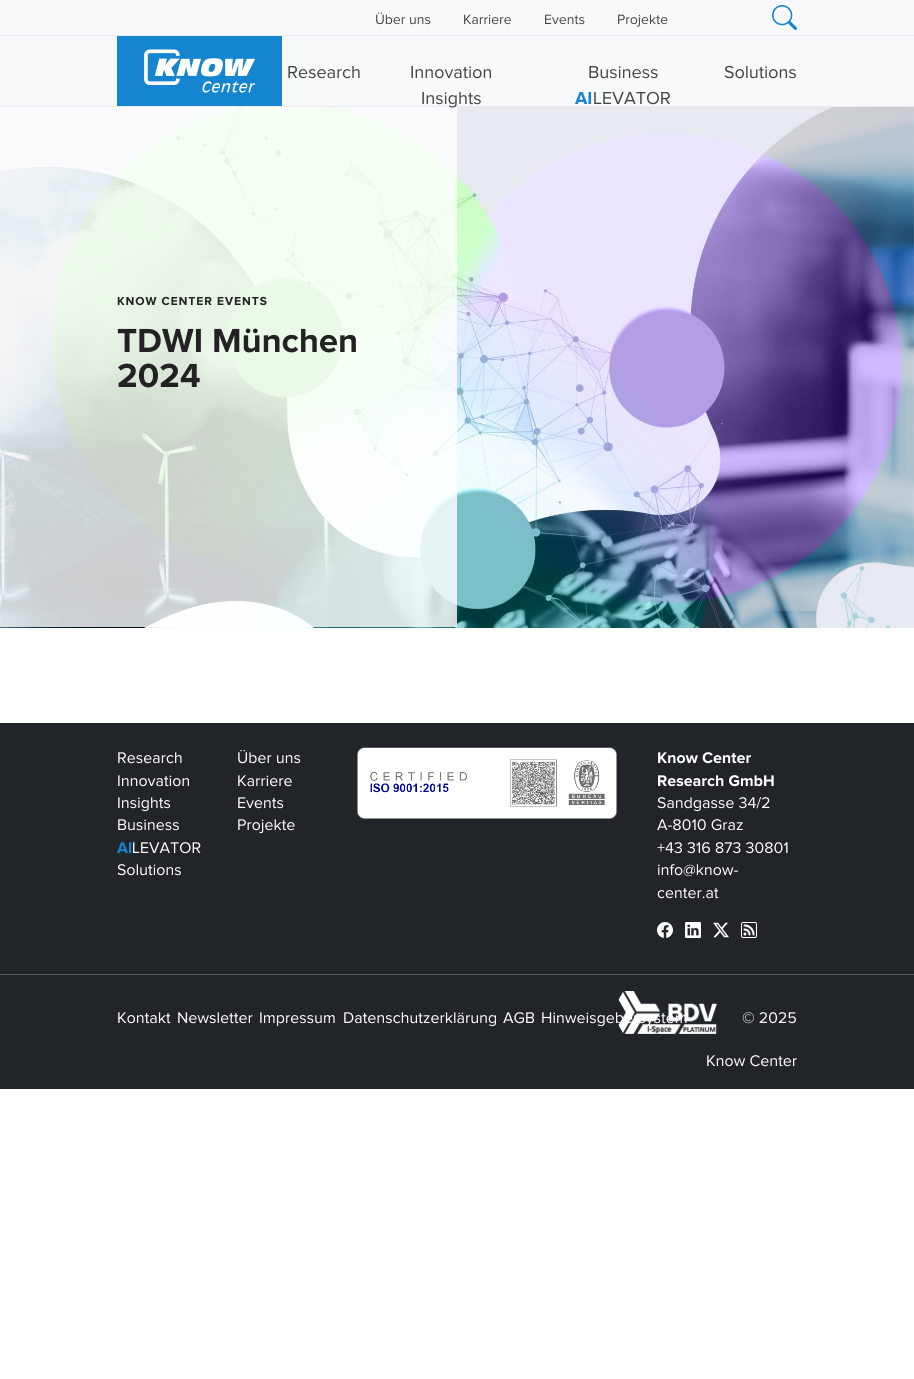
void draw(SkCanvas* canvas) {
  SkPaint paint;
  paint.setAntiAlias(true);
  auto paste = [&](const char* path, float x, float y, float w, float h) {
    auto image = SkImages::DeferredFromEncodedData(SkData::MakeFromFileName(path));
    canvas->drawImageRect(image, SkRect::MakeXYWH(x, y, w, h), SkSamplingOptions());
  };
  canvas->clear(0xffffffff);
  paint.setColor(0xfff8f9fa);
  canvas->drawRect(SkRect::MakeXYWH(0, 0, 914, 35), paint);
  paste("img/1.png", 376, 12, 55, 13);
  paste("img/2.png", 464, 14, 47, 11);
  paste("img/3.png", 545, 14, 40, 11);
  paste("img/4.png", 618, 14, 50, 13);
  paste("img/5.png", 772, 5, 25, 25);
  {
    const struct { float x, y, w, h; SkColor color; } items[] = {
      {0, 36, 914, 70, 0xfff8f9fa},
      {0, 35, 914, 1, 0xffe7eaf0},
      {0, 106, 914, 1, 0xffe7eaf0},
    };
    for (auto [x, y, w, h, color] : items) {
      paint.setColor(color);
      canvas->drawRect(SkRect::MakeXYWH(x, y, w, h), paint);
    }
  }
  paste("img/6.png", 117, 36, 165, 70);
  paste("img/7.png", 288, 66, 72, 13);
  paste("img/8.png", 411, 66, 80, 13);
  paste("img/14.png", 0, 107, 914, 521);
  paint.setColor(0xccffffff);
  canvas->drawRect(SkRect::MakeXYWH(0, 107, 457, 520), paint);
  paste("img/9.png", 422, 92, 59, 16);
  paste("img/10.png", 589, 66, 69, 13);
  paste("img/11.png", 575, 92, 17, 12);
  paste("img/12.png", 594, 91, 76, 14);
  paste("img/13.png", 724, 65, 72, 14);
  paste("img/15.png", 117, 296, 150, 10);
  paste("img/16.png", 117, 328, 239, 25);
  paste("img/17.png", 118, 363, 82, 25);
  paint.setColor(0xff212529);
  canvas->drawRect(SkRect::MakeXYWH(0, 723, 914, 366), paint);
  paste("img/18.png", 118, 752, 64, 12);
  paste("img/19.png", 118, 775, 71, 12);
  paste("img/20.png", 118, 797, 53, 15);
  paste("img/21.png", 118, 819, 61, 12);
  paste("img/22.png", 117, 842, 15, 11);
  paste("img/23.png", 133, 842, 68, 12);
  paste("img/24.png", 117, 864, 64, 12);
  paste("img/25.png", 238, 749, 63, 15);
  paste("img/26.png", 238, 775, 54, 12);
  paste("img/27.png", 238, 797, 46, 12);
  paste("img/28.png", 238, 819, 57, 15);
  paste("img/29.png", 357, 747, 260, 72);
  paste("img/30.png", 658, 752, 93, 12);
  paste("img/31.png", 658, 775, 116, 12);
  paste("img/32.png", 657, 797, 113, 15);
  paste("img/33.png", 657, 819, 86, 12);
  paste("img/34.png", 657, 842, 131, 12);
  paste("img/35.png", 658, 864, 80, 13);
  paste("img/36.png", 657, 888, 62, 11);
  paste("img/37.png", 657, 922, 16, 16);
  paste("img/38.png", 685, 922, 16, 16);
  paste("img/39.png", 713, 922, 16, 16);
  paste("img/40.png", 741, 922, 16, 16);
  paint.setColor(0xff595c5f);
  canvas->drawRect(SkRect::MakeXYWH(0, 974, 914, 1), paint);
  paste("img/41.png", 118, 1012, 53, 12);
  paste("img/42.png", 178, 1012, 75, 12);
  paste("img/43.png", 260, 1012, 75, 14);
  paste("img/44.png", 344, 1012, 152, 15);
  paste("img/45.png", 503, 1012, 32, 12);
  paste("img/46.png", 542, 1012, 145, 15);
  paste("img/47.png", 618, 991, 99, 43);
  paste("img/48.png", 742, 1012, 54, 12);
  paste("img/49.png", 707, 1055, 90, 12);
}
